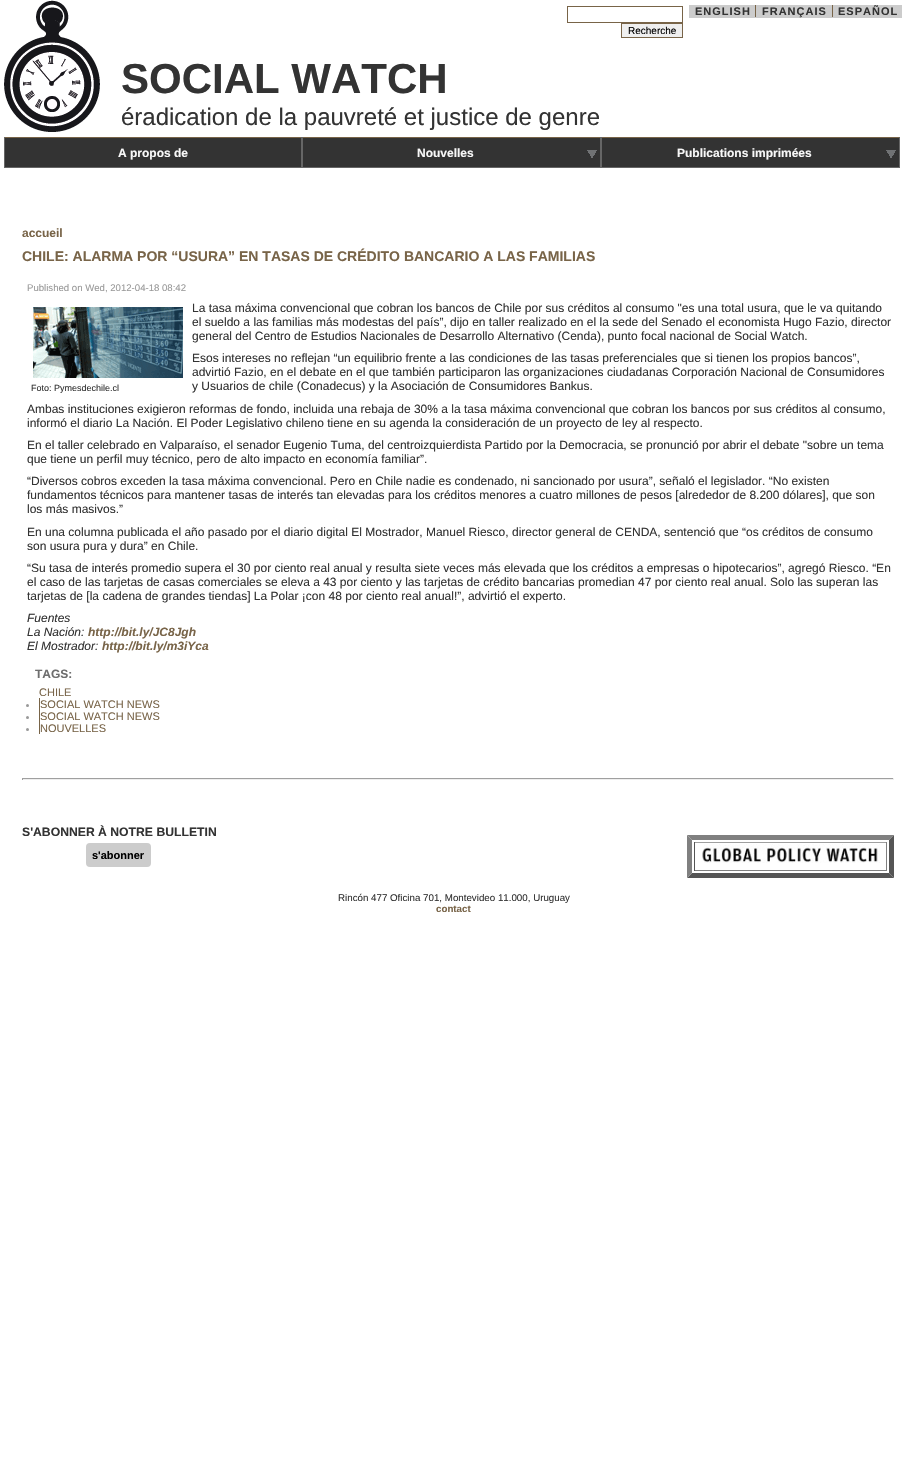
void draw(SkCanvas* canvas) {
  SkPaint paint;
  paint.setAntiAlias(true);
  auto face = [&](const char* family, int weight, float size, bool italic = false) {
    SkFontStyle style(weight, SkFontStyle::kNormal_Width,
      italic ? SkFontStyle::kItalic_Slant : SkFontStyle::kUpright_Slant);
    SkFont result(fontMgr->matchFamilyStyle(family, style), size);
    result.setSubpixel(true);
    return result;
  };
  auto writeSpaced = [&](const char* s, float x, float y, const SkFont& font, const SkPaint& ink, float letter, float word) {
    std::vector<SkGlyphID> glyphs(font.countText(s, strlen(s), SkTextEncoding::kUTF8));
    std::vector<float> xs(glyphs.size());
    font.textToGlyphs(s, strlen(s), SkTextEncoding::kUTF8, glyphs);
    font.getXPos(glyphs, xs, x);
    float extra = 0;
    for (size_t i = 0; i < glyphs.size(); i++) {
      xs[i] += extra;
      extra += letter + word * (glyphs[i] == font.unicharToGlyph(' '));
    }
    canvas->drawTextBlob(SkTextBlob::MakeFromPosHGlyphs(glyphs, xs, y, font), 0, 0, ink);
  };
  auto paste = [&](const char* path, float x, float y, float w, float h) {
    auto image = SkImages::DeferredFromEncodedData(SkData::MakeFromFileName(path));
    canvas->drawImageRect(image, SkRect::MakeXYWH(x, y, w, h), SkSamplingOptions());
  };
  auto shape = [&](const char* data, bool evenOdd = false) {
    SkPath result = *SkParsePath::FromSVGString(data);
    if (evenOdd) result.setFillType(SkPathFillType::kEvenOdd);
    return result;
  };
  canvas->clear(0xffffffff);
  paste("img/1.png", 4, 0, 96, 132);
  {
    const struct { float x, y, w, h; SkColor color; } items[] = {
      {689, 5, 213, 13, 0xffcccccc},
      {755, 5, 1, 12, 0xff786448},
      {832, 5, 1, 12, 0xff786448},
    };
    for (auto [x, y, w, h, color] : items) {
      paint.setColor(color);
      canvas->drawRect(SkRect::MakeXYWH(x, y, w, h), paint);
    }
  }
  paint.setStroke(true);
  paint.setStrokeWidth(1);
  canvas->drawRect(SkRect::MakeXYWH(567.5f, 6.5f, 115, 16), paint);
  paint.setStroke(false);
  paint.setColor(0xffefefef);
  canvas->drawRect(SkRect::MakeXYWH(621.5f, 23.5f, 61, 14), paint);
  paint.setStroke(true);
  paint.setColor(0xff786448);
  canvas->drawRect(SkRect::MakeXYWH(621.5f, 23.5f, 61, 14), paint);
  paint.setStroke(false);
  {
    const struct { float x, y, w, h; SkColor color; } items[] = {
      {5, 138, 296, 29, 0xff333333},
      {4, 137, 896, 1, 0xff786448},
      {301, 137, 1, 31, 0xff666666},
      {4, 167, 298, 1, 0xff666666},
      {4, 137, 1, 31, 0xff666666},
      {303, 138, 297, 29, 0xff333333},
    };
    for (auto [x, y, w, h, color] : items) {
      paint.setColor(color);
      canvas->drawRect(SkRect::MakeXYWH(x, y, w, h), paint);
    }
  }
  paste("img/2.png", 587, 150, 10, 8);
  {
    const struct { float x, y, w, h; SkColor color; } items[] = {
      {600, 137, 1, 31, 0xff666666},
      {302, 167, 299, 1, 0xff666666},
      {302, 137, 1, 31, 0xff666666},
      {602, 138, 297, 29, 0xff333333},
    };
    for (auto [x, y, w, h, color] : items) {
      paint.setColor(color);
      canvas->drawRect(SkRect::MakeXYWH(x, y, w, h), paint);
    }
  }
  paste("img/2.png", 886, 150, 10, 8);
  {
    const struct { float x, y, w, h; SkColor color; } items[] = {
      {899, 137, 1, 31, 0xff666666},
      {601, 167, 299, 1, 0xff666666},
      {601, 137, 1, 31, 0xff666666},
    };
    for (auto [x, y, w, h, color] : items) {
      paint.setColor(color);
      canvas->drawRect(SkRect::MakeXYWH(x, y, w, h), paint);
    }
  }
  paste("img/3.png", 33, 307, 150, 71);
  paint.setColor(0xff786448);
  canvas->drawRect(SkRect::MakeXYWH(39, 698, 1, 36), paint);
  paint.setColor(0xff999999);
  canvas->drawCircle(27.5f, 705.5f, 1.5f, paint);
  canvas->drawCircle(27.5f, 717.5f, 1.5f, paint);
  canvas->drawCircle(27.5f, 729.5f, 1.5f, paint);
  {
    const struct { float x, y, w, h; SkColor color; } items[] = {
      {22, 778, 872, 1, 0xff9f9f9f},
      {893, 778, 1, 2, 0xffeeeeee},
      {22, 779, 872, 1, 0xffeeeeee},
      {22, 778, 1, 2, 0xff9f9f9f},
    };
    for (auto [x, y, w, h, color] : items) {
      paint.setColor(color);
      canvas->drawRect(SkRect::MakeXYWH(x, y, w, h), paint);
    }
  }
  paint.setColor(0xffcccccc);
  canvas->drawRoundRect(SkRect::MakeXYWH(86, 843, 65, 24), 4, 4, paint);
  paint.setColor(0xff808080);
  canvas->drawPath(shape("M687 835H894L889 840H692Z"), paint);
  paint.setColor(0xff555555);
  canvas->drawPath(shape("M894 835V878L889 873V840Z"), paint);
  canvas->drawPath(shape("M894 878H687L692 873H889Z"), paint);
  paint.setColor(0xff808080);
  canvas->drawPath(shape("M687 878V835L692 840V873Z"), paint);
  {
    const struct { float x, y, w, h; SkColor color; } items[] = {
      {694, 842, 193, 1, 0xff9f9f9f},
      {886, 842, 1, 29, 0xff808080},
      {694, 870, 193, 1, 0xff808080},
      {694, 842, 1, 29, 0xff555555},
    };
    for (auto [x, y, w, h, color] : items) {
      paint.setColor(color);
      canvas->drawRect(SkRect::MakeXYWH(x, y, w, h), paint);
    }
  }
  paste("img/4.png", 702, 844, 178, 19);
  auto f0 = face("Liberation Sans", 700, 11);
  paint.setColor(0xff333333);
  {
    const struct { const char* s; float x, y; } items[] = {
      {"ENGLISH", 695, 15},
      {"FRANÇAIS", 762, 15},
      {"ESPAÑOL", 838, 15},
    };
    for (auto [s, x, y] : items) {
      writeSpaced(s, x, y, f0, paint, 1, 0);
    }
  }
  auto f1 = face("Liberation Sans", 400, 10);
  paint.setColor(0xff000000);
  canvas->drawString("Recherche", 628, 34, f1, paint);
  auto f2 = face("Liberation Sans", 700, 42);
  paint.setColor(0xff333333);
  canvas->drawString("SOCIAL WATCH", 121, 93, f2, paint);
  auto f3 = face("Liberation Sans", 400, 24);
  canvas->drawString("éradication de la pauvreté et justice de genre", 121, 125, f3, paint);
  auto f4 = face("Liberation Sans", 700, 12);
  paint.setColor(0xfff8f8f8);
  {
    const struct { const char* s; float x, y; } items[] = {
      {"A propos de", 118, 157},
      {"Nouvelles", 417, 157},
      {"Publications imprimées", 677, 157},
    };
    for (auto [s, x, y] : items) {
      canvas->drawString(s, x, y, f4, paint);
    }
  }
  paint.setColor(0xff786448);
  canvas->drawString("accueil", 22, 237, f4, paint);
  auto f5 = face("Liberation Sans", 700, 14);
  canvas->drawString("CHILE: ALARMA POR “USURA” EN TASAS DE CRÉDITO BANCARIO A LAS FAMILIAS", 22, 261, f5, paint);
  auto f6 = face("Liberation Sans", 400, 9.6f);
  paint.setColor(0xff999999);
  canvas->drawString("Published on Wed, 2012-04-18 08:42", 27, 291, f6, paint);
  auto f7 = face("Liberation Sans", 400, 12);
  paint.setColor(0xff333333);
  {
    const struct { const char* s; float x, y; } items[] = {
      {"La tasa máxima convencional que cobran los bancos de Chile por sus créditos al consumo \"es una total usura, que le va quitando", 192, 312},
      {"el sueldo a las familias más modestas del país”, dijo en taller realizado en el la sede del Senado el economista Hugo Fazio, director", 192, 326},
      {"general del Centro de Estudios Nacionales de Desarrollo Alternativo (Cenda), punto focal nacional de Social Watch.", 192, 340},
    };
    for (auto [s, x, y] : items) {
      canvas->drawString(s, x, y, f7, paint);
    }
  }
  auto f8 = face("Liberation Sans", 400, 9);
  canvas->drawString("Foto: Pymesdechile.cl", 31, 391, f8, paint);
  {
    const struct { const char* s; float x, y; } items[] = {
      {"Esos intereses no reflejan “un equilibrio frente a las condiciones de las tasas preferenciales que si tienen los propios bancos”,", 192, 362},
      {"advirtió Fazio, en el debate en el que también participaron las organizaciones ciudadanas Corporación Nacional de Consumidores", 192, 376},
      {"y Usuarios de chile (Conadecus) y la Asociación de Consumidores Bankus.", 192, 390},
      {"Ambas instituciones exigieron reformas de fondo, incluida una rebaja de 30% a la tasa máxima convencional que cobran los bancos por sus créditos al consumo,", 27, 413},
      {"informó el diario La Nación. El Poder Legislativo chileno tiene en su agenda la consideración de un proyecto de ley al respecto.", 27, 427},
      {"En el taller celebrado en Valparaíso, el senador Eugenio Tuma, del centroizquierdista Partido por la Democracia, se pronunció por abrir el debate \"sobre un tema", 27, 449},
      {"que tiene un perfil muy técnico, pero de alto impacto en economía familiar”.", 27, 463},
      {"“Diversos cobros exceden la tasa máxima convencional. Pero en Chile nadie es condenado, ni sancionado por usura”, señaló el legislador. “No existen", 27, 485},
      {"fundamentos técnicos para mantener tasas de interés tan elevadas para los créditos menores a cuatro millones de pesos [alrededor de 8.200 dólares], que son", 27, 499},
      {"los más masivos.”", 27, 513},
      {"En una columna publicada el año pasado por el diario digital El Mostrador, Manuel Riesco, director general de CENDA, sentenció que “os créditos de consumo", 27, 536},
      {"son usura pura y dura” en Chile.", 27, 550},
      {"“Su tasa de interés promedio supera el 30 por ciento real anual y resulta siete veces más elevada que los créditos a empresas o hipotecarios”, agregó Riesco. “En", 27, 572},
      {"el caso de las tarjetas de casas comerciales se eleva a 43 por ciento y las tarjetas de crédito bancarias promedian 47 por ciento real anual. Solo las superan las", 27, 586},
      {"tarjetas de [la cadena de grandes tiendas] La Polar ¡con 48 por ciento real anual!”, advirtió el experto.", 27, 600},
    };
    for (auto [s, x, y] : items) {
      canvas->drawString(s, x, y, f7, paint);
    }
  }
  auto f9 = face("Liberation Sans", 400, 12, true);
  canvas->drawString("Fuentes", 27, 622, f9, paint);
  canvas->drawString("La Nación:", 27, 636, f9, paint);
  auto f10 = face("Liberation Sans", 700, 12, true);
  paint.setColor(0xff786448);
  canvas->drawString("http://bit.ly/JC8Jgh", 88, 636, f10, paint);
  paint.setColor(0xff333333);
  canvas->drawString("El Mostrador:", 27, 650, f9, paint);
  paint.setColor(0xff786448);
  canvas->drawString("http://bit.ly/m3iYca", 102, 650, f10, paint);
  paint.setColor(0xff6f6f6f);
  canvas->drawString("TAGS:", 35, 678, f4, paint);
  auto f11 = face("Liberation Sans", 400, 11);
  paint.setColor(0xff786448);
  {
    const struct { const char* s; float x, y; } items[] = {
      {"CHILE", 39, 696},
      {"SOCIAL WATCH NEWS", 40, 708},
      {"SOCIAL WATCH NEWS", 40, 720},
      {"NOUVELLES", 40, 732},
    };
    for (auto [s, x, y] : items) {
      canvas->drawString(s, x, y, f11, paint);
    }
  }
  auto f12 = face("Liberation Sans", 700, 12.2f);
  paint.setColor(0xff333333);
  canvas->drawString("S'ABONNER À NOTRE BULLETIN", 22, 836, f12, paint);
  paint.setColor(0xff000000);
  canvas->drawString("s'abonner", 92, 859, f0, paint);
  auto f13 = face("Liberation Sans", 400, 9.75f);
  paint.setColor(0xff333333);
  canvas->drawString("Rincón 477 Oficina 701, Montevideo 11.000, Uruguay", 338, 901, f13, paint);
  auto f14 = face("Liberation Sans", 700, 9.75f);
  paint.setColor(0xff786448);
  canvas->drawString("contact", 436, 912, f14, paint);
}
